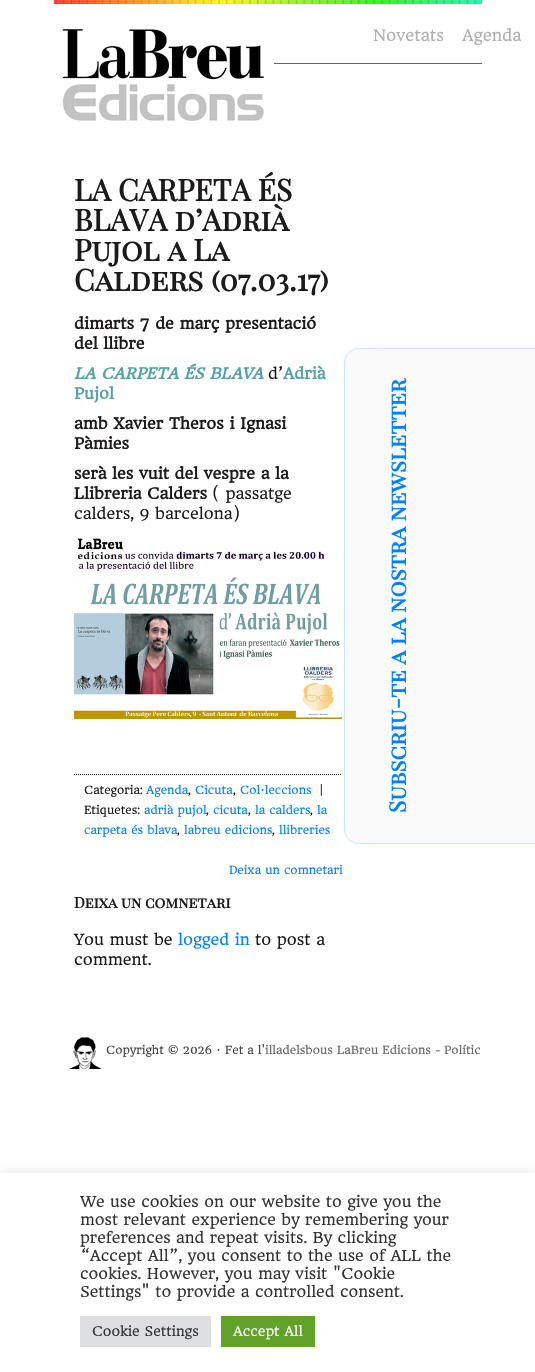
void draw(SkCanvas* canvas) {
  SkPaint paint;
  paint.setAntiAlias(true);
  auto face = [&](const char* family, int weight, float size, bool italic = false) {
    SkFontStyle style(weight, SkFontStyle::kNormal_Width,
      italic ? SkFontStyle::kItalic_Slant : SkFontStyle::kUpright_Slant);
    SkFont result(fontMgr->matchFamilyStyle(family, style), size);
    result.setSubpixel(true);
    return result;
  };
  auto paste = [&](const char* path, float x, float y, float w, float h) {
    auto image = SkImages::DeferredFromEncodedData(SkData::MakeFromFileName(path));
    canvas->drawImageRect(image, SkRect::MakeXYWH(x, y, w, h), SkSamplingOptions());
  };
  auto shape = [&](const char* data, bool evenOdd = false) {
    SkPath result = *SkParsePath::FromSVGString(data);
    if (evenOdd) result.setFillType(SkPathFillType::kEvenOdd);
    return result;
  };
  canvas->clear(0xffffffff);
  paste("img/1.png", 54, 0, 428, 4);
  paint.setColor(0xff666666);
  canvas->drawRect(SkRect::MakeXYWH(274, 63, 208, 1), paint);
  paste("img/2.png", 54, 29, 220, 92);
  paste("img/3.png", 74, 538, 268, 181);
  paint.setStroke(true);
  paint.setStrokeWidth(1);
  paint.setColor(0xff333333);
  paint.setPathEffect(SkDashPathEffect::Make({{1, 1}}, 0));
  canvas->drawPath(shape("M74 774.5H342"), paint);
  paint.setPathEffect(nullptr);
  paste("img/4.png", 69, 1037, 32, 32);
  paint.setStroke(false);
  paint.setColor(0xfffbfafa);
  canvas->drawPath(shape("M344 829V363C344 355 351 348 359 348H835C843 348 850 355 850 363V829C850 837 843 844 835 844H359C351 844 344 837 344 829Z"), paint);
  paint.setStroke(true);
  paint.setColor(0xffc8e4ff);
  canvas->drawPath(shape("M344.5 829V363C344.5 355 351 348.5 359 348.5H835C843 348.5 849.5 355 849.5 363V829C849.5 837 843 843.5 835 843.5H359C351 843.5 344.5 837 344.5 829Z"), paint);
  paint.setStroke(false);
  paint.setColor(0x4dacabab);
  paint.setMaskFilter(SkMaskFilter::MakeBlur(kNormal_SkBlurStyle, 5));
  canvas->drawRect(SkRect::MakeXYWH(0, 1172, 535, 199), paint);
  paint.setMaskFilter(nullptr);
  {
    const struct { float x, y, w, h; SkColor color; } items[] = {
      {0, 1173, 535, 199, 0xffffffff},
      {80, 1316, 131, 31, 0xffdedfe0},
      {221, 1316, 94, 31, 0xff61a229},
    };
    for (auto [x, y, w, h, color] : items) {
      paint.setColor(color);
      canvas->drawRect(SkRect::MakeXYWH(x, y, w, h), paint);
    }
  }
  auto f0 = face("HeadlandOne", 400, 15.5f);
  paint.setColor(0xffafafaf);
  canvas->drawString("Novetats", 373, 41, f0, paint);
  canvas->drawString("Agenda", 462, 41, f0, paint);
  auto f1 = face("Playfair Display SC", 700, 30);
  paint.setColor(0xff1d1a1a);
  {
    const struct { const char* s; float x, y; } items[] = {
      {"LA CARPETA ÉS", 74, 201},
      {"BLAVA d’Adrià", 74, 231},
      {"Pujol a La", 74, 261},
      {"Calders (07.03.17)", 74, 291},
    };
    for (auto [s, x, y] : items) {
      canvas->drawString(s, x, y, f1, paint);
    }
  }
  auto f2 = face("HeadlandOne", 700, 15);
  canvas->drawString("dimarts 7 de març presentació", 74, 329, f2, paint);
  canvas->drawString("del llibre", 74, 349, f2, paint);
  auto f3 = face("HeadlandOne", 700, 15, true);
  paint.setColor(0xff51a2a6);
  canvas->drawString("LA CARPETA ÉS BLAVA", 74, 379, f3, paint);
  auto f4 = face("HeadlandOne", 400, 15);
  paint.setColor(0xff1d1a1a);
  canvas->drawString("d’", 268, 379, f4, paint);
  paint.setColor(0xff51a2a6);
  canvas->drawString("Adrià", 283, 379, f2, paint);
  canvas->drawString("Pujol", 74, 399, f2, paint);
  paint.setColor(0xff1d1a1a);
  {
    const struct { const char* s; float x, y; } items[] = {
      {"amb Xavier Theros i Ignasi", 74, 429},
      {"Pàmies", 74, 449},
      {"serà les vuit del vespre a la", 74, 479},
      {"Llibreria Calders", 74, 499},
    };
    for (auto [s, x, y] : items) {
      canvas->drawString(s, x, y, f2, paint);
    }
  }
  canvas->drawString("( passatge", 212, 499, f4, paint);
  canvas->drawString("calders, 9 barcelona)", 74, 519, f4, paint);
  auto f5 = face("HeadlandOne", 400, 11);
  canvas->drawString("Categoria:", 84, 794, f5, paint);
  paint.setColor(0xff0080ff);
  canvas->drawString("Agenda", 146, 794, f5, paint);
  paint.setColor(0xff1d1a1a);
  canvas->drawString(",", 188, 794, f5, paint);
  paint.setColor(0xff0080ff);
  canvas->drawString("Cicuta", 195, 794, f5, paint);
  paint.setColor(0xff1d1a1a);
  canvas->drawString(",", 233, 794, f5, paint);
  paint.setColor(0xff0080ff);
  canvas->drawString("Col·leccions", 240, 794, f5, paint);
  paint.setColor(0xff1d1a1a);
  canvas->drawString("|", 319, 794, f5, paint);
  canvas->drawString("Etiquetes:", 84, 814, f5, paint);
  paint.setColor(0xff0080ff);
  canvas->drawString("adrià pujol", 144, 814, f5, paint);
  paint.setColor(0xff1d1a1a);
  canvas->drawString(",", 206, 814, f5, paint);
  paint.setColor(0xff0080ff);
  canvas->drawString("cicuta", 213, 814, f5, paint);
  paint.setColor(0xff1d1a1a);
  canvas->drawString(",", 248, 814, f5, paint);
  paint.setColor(0xff0080ff);
  canvas->drawString("la calders", 255, 814, f5, paint);
  paint.setColor(0xff1d1a1a);
  canvas->drawString(",", 310, 814, f5, paint);
  paint.setColor(0xff0080ff);
  canvas->drawString("la", 317, 814, f5, paint);
  canvas->drawString("carpeta és blava", 84, 834, f5, paint);
  paint.setColor(0xff1d1a1a);
  canvas->drawString(",", 177, 834, f5, paint);
  paint.setColor(0xff0080ff);
  canvas->drawString("labreu edicions", 184, 834, f5, paint);
  paint.setColor(0xff1d1a1a);
  canvas->drawString(",", 272, 834, f5, paint);
  paint.setColor(0xff0080ff);
  canvas->drawString("llibreries", 279, 834, f5, paint);
  canvas->drawString("Deixa un comnetari", 229, 874, f5, paint);
  auto f6 = face("Playfair Display SC", 700, 15);
  paint.setColor(0xff1d1a1a);
  canvas->drawString("Deixa un comnetari", 74, 908, f6, paint);
  canvas->drawString("You must be", 74, 945, f4, paint);
  paint.setColor(0xff0080ff);
  canvas->drawString("logged in", 178, 945, f4, paint);
  paint.setColor(0xff1d1a1a);
  canvas->drawString("to post a", 255, 945, f4, paint);
  canvas->drawString("comment.", 74, 965, f4, paint);
  paint.setColor(0xff444444);
  canvas->drawString("Copyright © 2026 · Fet a l'", 106, 1054, f5, paint);
  paint.setColor(0xff666666);
  canvas->drawString("illadelsbous LaBreu Edicions", 265, 1054, f5, paint);
  paint.setColor(0xff444444);
  canvas->drawString("-", 435, 1054, f5, paint);
  paint.setColor(0xff666666);
  canvas->drawString("Polític", 444, 1054, f5, paint);
  auto f7 = face("Playfair Display SC", 700, 22.5f);
  paint.setColor(0xff0080ff);
  canvas->save();
  canvas->rotate(-90, 406, 813);
  canvas->drawString("Subscriu-te a la nostra newsletter", 406, 813, f7, paint);
  canvas->restore();
  auto f8 = face("HeadlandOne", 400, 14.7f);
  paint.setColor(0xff333333);
  {
    const struct { const char* s; float x, y; } items[] = {
      {"We use cookies on our website to give you the", 80, 1207},
      {"most relevant experience by remembering your", 80, 1225},
      {"preferences and repeat visits. By clicking", 80, 1243},
      {"“Accept All”, you consent to the use of ALL the", 80, 1261},
      {"cookies. However, you may visit \"Cookie", 80, 1279},
      {"Settings\" to provide a controlled consent.", 80, 1297},
    };
    for (auto [s, x, y] : items) {
      canvas->drawString(s, x, y, f8, paint);
    }
  }
  auto f9 = face("HeadlandOne", 400, 13);
  canvas->drawString("Cookie Settings", 92, 1336, f9, paint);
  paint.setColor(0xffffffff);
  canvas->drawString("Accept All", 233, 1336, f9, paint);
}
